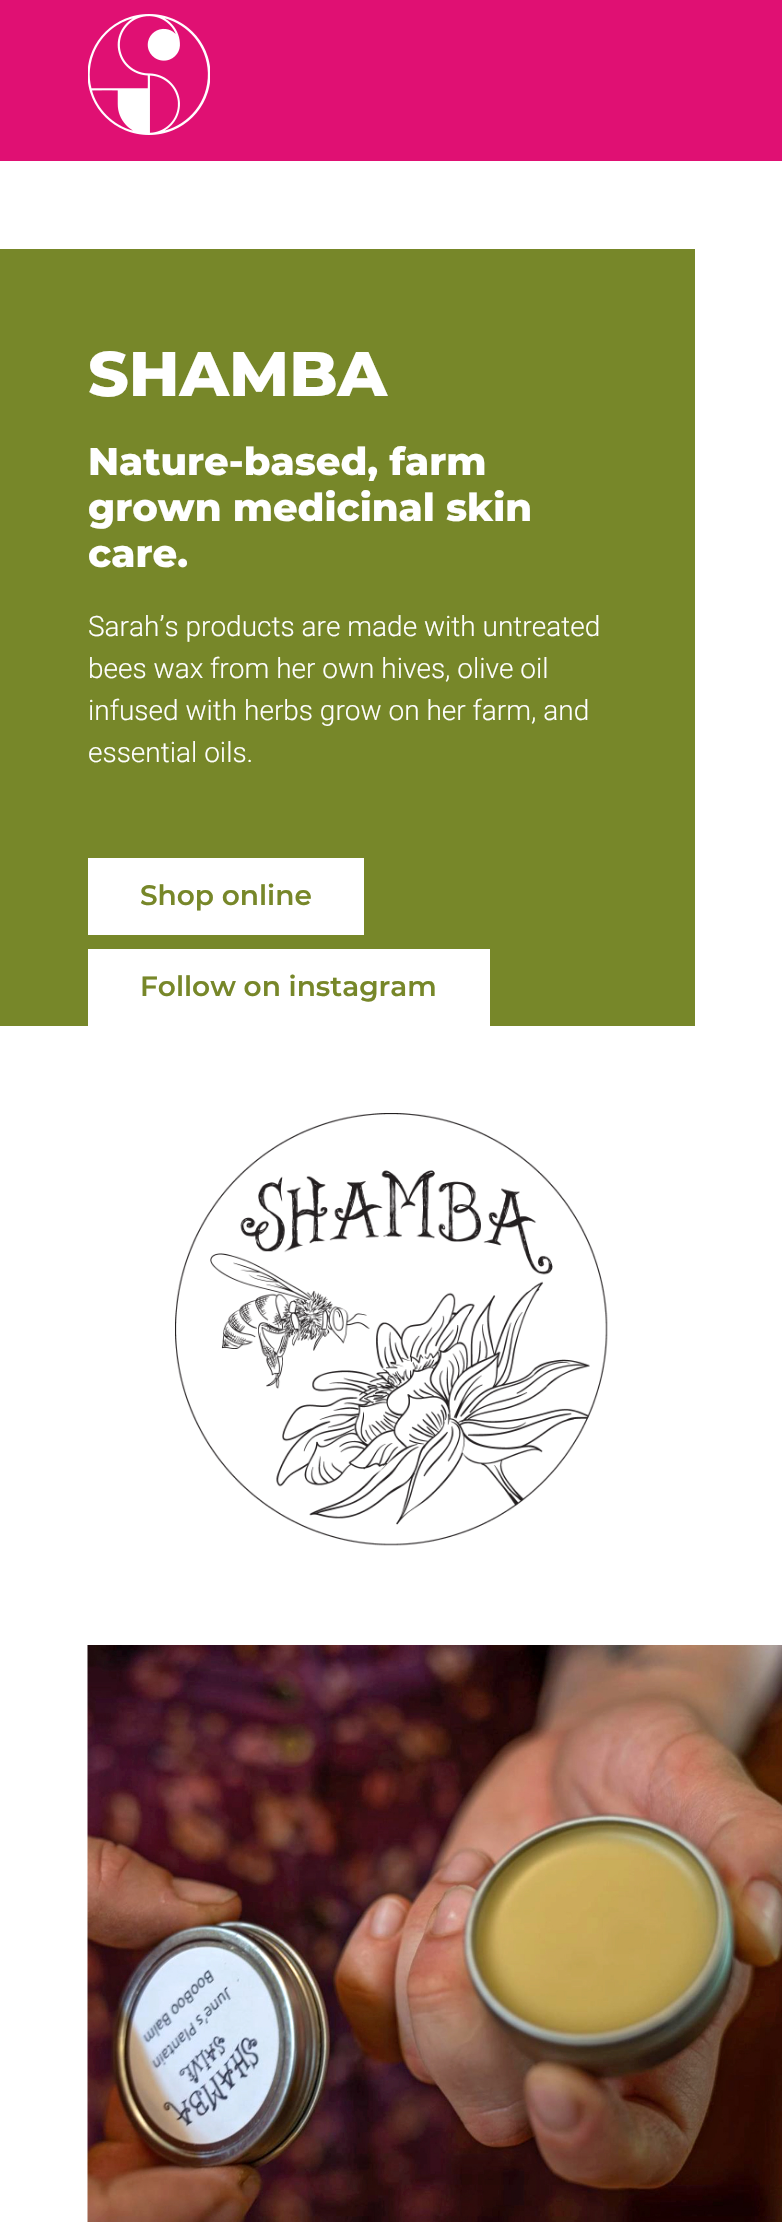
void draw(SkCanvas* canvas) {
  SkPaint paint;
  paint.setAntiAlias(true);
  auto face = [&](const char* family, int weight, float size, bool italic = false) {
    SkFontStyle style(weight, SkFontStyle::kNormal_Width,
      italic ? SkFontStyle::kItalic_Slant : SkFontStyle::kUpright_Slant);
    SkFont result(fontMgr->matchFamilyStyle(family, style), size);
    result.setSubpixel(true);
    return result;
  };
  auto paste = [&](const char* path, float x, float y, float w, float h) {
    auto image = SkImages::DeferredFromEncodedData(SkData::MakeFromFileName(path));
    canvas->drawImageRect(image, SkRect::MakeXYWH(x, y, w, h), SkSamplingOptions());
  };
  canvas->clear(0xffffffff);
  paint.setColor(0xffe01073);
  canvas->drawRect(SkRect::MakeXYWH(0, 0, 782, 161), paint);
  paste("img/1.png", 88, 14, 122, 121);
  {
    const struct { float x, y, w, h; SkColor color; } items[] = {
      {0, 249, 695, 777, 0xff778729},
      {88, 858, 276, 77, 0xffffffff},
      {88, 949, 402, 77, 0xffffffff},
    };
    for (auto [x, y, w, h, color] : items) {
      paint.setColor(color);
      canvas->drawRect(SkRect::MakeXYWH(x, y, w, h), paint);
    }
  }
  paste("img/2.png", 175, 1113, 433, 433);
  paste("img/3.png", 87, 1645, 695, 577);
  auto f0 = face("Montserrat", 800, 63);
  canvas->drawString("SHAMBA", 88, 396, f0, paint);
  auto f1 = face("Montserrat", 800, 38.5f);
  {
    const struct { const char* s; float x, y; } items[] = {
      {"Nature-based, farm", 88, 475},
      {"grown medicinal skin", 88, 521},
      {"care.", 88, 567},
    };
    for (auto [s, x, y] : items) {
      canvas->drawString(s, x, y, f1, paint);
    }
  }
  auto f2 = face("Roboto", 300, 28);
  {
    const struct { const char* s; float x, y; } items[] = {
      {"Sarah’s products are made with untreated", 88, 636},
      {"bees wax from her own hives, olive oil", 88, 678},
      {"infused with herbs grow on her farm, and", 88, 720},
      {"essential oils.", 88, 762},
    };
    for (auto [s, x, y] : items) {
      canvas->drawString(s, x, y, f2, paint);
    }
  }
  auto f3 = face("Montserrat", 600, 28);
  paint.setColor(0xff778729);
  canvas->drawString("Shop online", 140, 905, f3, paint);
  canvas->drawString("Follow on instagram", 140, 996, f3, paint);
}
